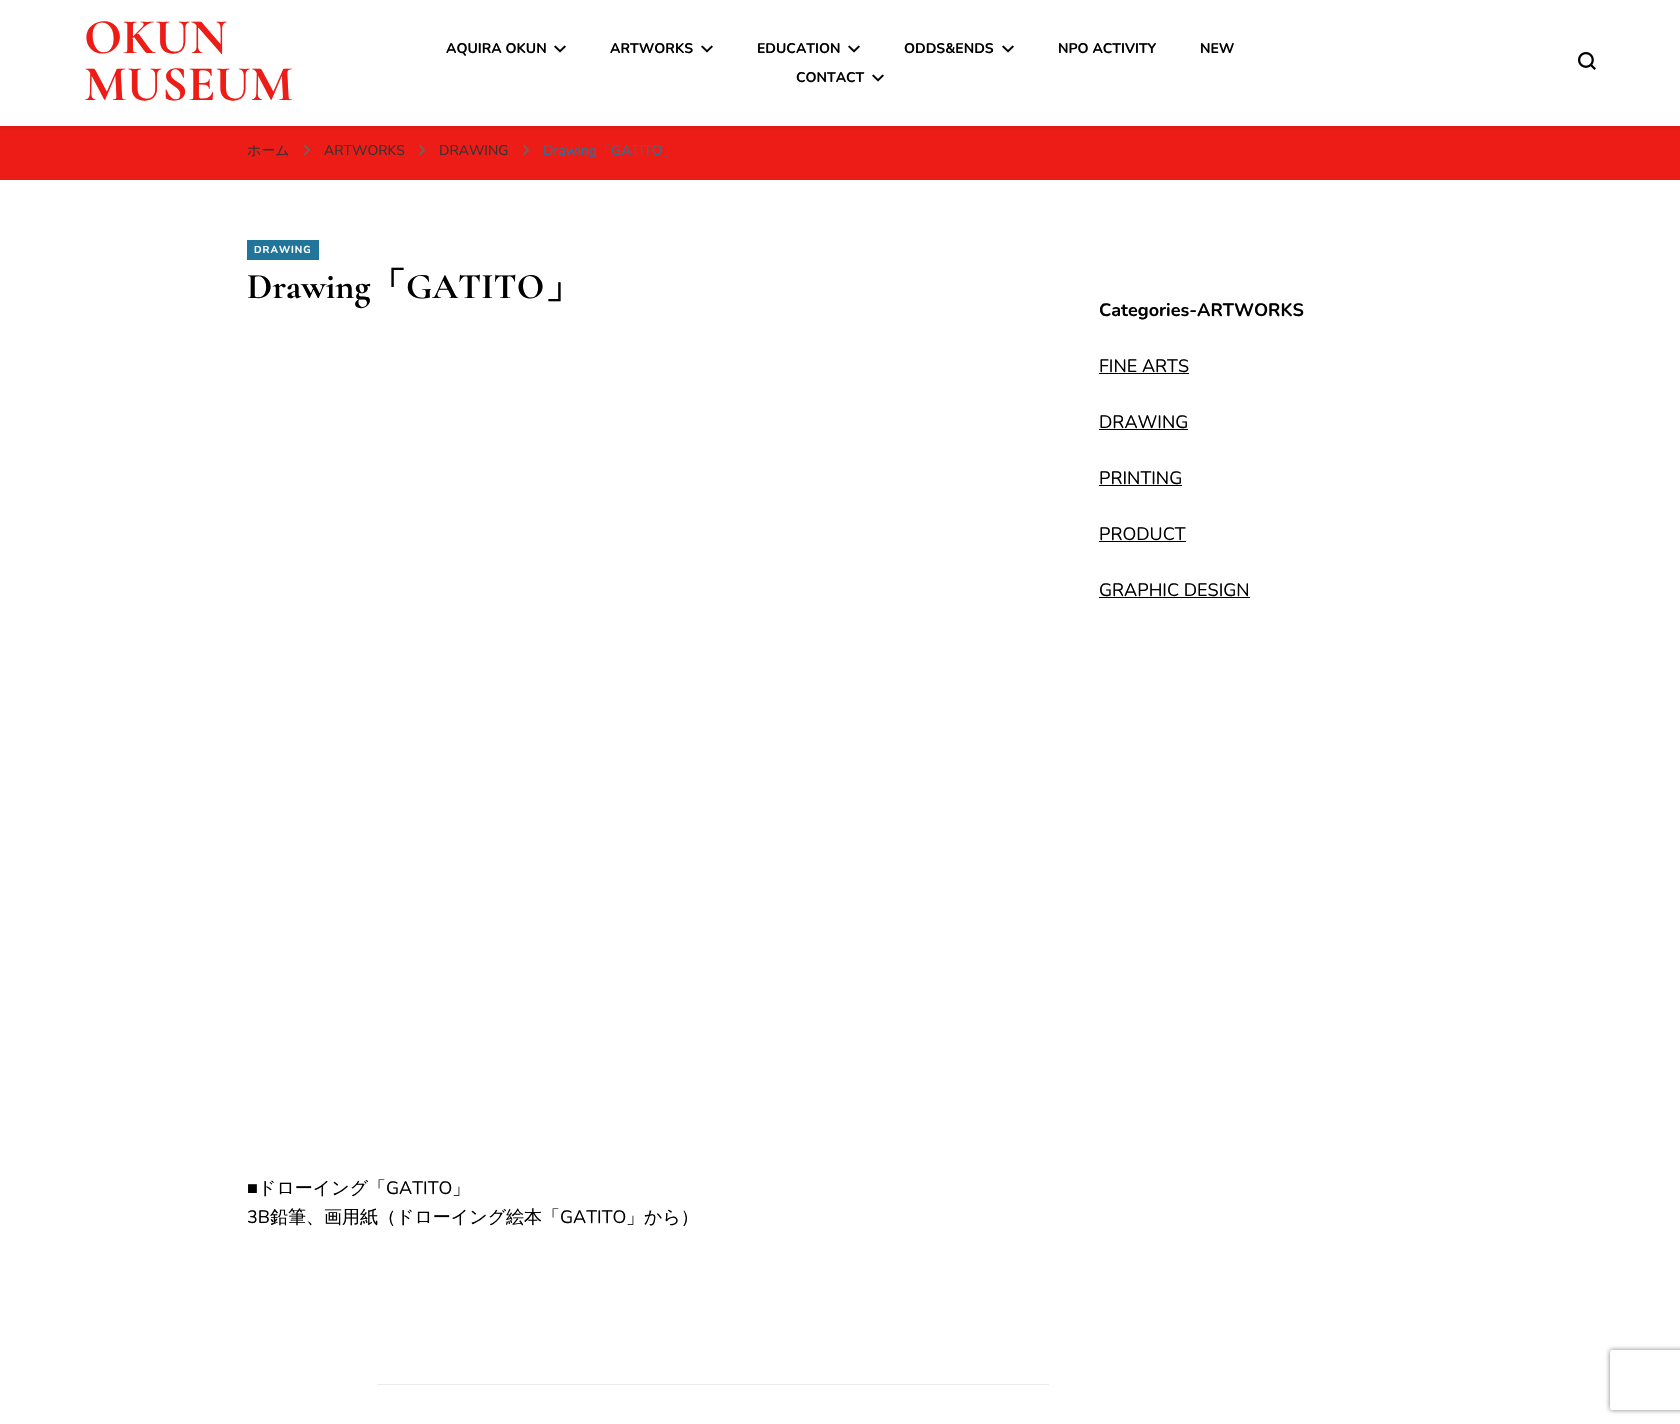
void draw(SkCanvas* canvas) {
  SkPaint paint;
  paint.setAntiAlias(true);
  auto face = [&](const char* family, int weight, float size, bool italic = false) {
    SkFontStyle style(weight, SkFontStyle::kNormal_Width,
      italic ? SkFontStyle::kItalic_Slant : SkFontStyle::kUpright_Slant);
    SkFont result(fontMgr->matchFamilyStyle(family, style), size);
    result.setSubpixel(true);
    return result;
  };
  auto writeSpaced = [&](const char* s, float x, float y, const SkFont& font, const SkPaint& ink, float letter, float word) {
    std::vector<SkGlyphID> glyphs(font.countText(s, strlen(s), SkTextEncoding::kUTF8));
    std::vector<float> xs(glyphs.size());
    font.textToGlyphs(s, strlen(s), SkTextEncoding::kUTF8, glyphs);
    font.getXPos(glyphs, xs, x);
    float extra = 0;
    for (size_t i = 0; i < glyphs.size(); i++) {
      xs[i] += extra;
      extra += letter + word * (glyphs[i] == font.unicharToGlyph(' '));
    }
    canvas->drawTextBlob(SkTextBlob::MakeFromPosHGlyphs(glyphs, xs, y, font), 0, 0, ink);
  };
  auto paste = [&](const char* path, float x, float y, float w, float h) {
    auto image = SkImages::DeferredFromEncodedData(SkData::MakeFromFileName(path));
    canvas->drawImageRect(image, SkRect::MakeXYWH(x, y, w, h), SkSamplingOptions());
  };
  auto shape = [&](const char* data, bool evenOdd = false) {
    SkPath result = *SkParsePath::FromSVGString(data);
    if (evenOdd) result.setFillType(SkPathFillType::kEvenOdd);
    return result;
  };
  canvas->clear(0xffed1c16);
  paint.setColor(0x1a000000);
  paint.setMaskFilter(SkMaskFilter::MakeBlur(kNormal_SkBlurStyle, 2.5f));
  canvas->drawRect(SkRect::MakeXYWH(0, 1, 1680, 126), paint);
  paint.setMaskFilter(nullptr);
  paint.setColor(0xffffffff);
  canvas->drawRect(SkRect::MakeXYWH(0, 0, 1680, 126), paint);
  paste("img/1.png", 554, 45, 12, 8);
  paste("img/1.png", 701, 45, 12, 8);
  paste("img/1.png", 848, 45, 12, 8);
  paste("img/1.png", 1002, 45, 12, 8);
  paste("img/1.png", 872, 74, 12, 8);
  paste("img/2.png", 1578, 52, 18, 18);
  paste("img/3.png", 303, 144, 7, 12);
  paste("img/3.png", 418, 144, 7, 12);
  paste("img/3.png", 522, 144, 7, 12);
  {
    const struct { float x, y, w, h; SkColor color; } items[] = {
      {0, 180, 1680, 1244, 0xffffffff},
      {247, 240, 72, 20, 0xff21759b},
      {377, 1384, 672, 1, 0xffebebeb},
      {1099, 373, 90, 1, 0xff000000},
      {1099, 429, 89, 1, 0xff000000},
      {1099, 485, 83, 1, 0xff000000},
      {1099, 541, 87, 1, 0xff000000},
      {1099, 597, 151, 1, 0xff000000},
    };
    for (auto [x, y, w, h, color] : items) {
      paint.setColor(color);
      canvas->drawRect(SkRect::MakeXYWH(x, y, w, h), paint);
    }
  }
  canvas->save();
  canvas->clipPath(shape("M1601 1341H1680V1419H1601ZM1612 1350H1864C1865 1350 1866 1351 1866 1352V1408C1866 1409 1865 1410 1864 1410H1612C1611 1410 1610 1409 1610 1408V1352C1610 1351 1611 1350 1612 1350Z", true), true);
  paint.setColor(0xff808080);
  paint.setMaskFilter(SkMaskFilter::MakeBlur(kNormal_SkBlurStyle, 2.5f));
  canvas->drawRoundRect(SkRect::MakeXYWH(1610, 1350, 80, 60), 2, 2, paint);
  paint.setMaskFilter(nullptr);
  canvas->restore();
  auto f0 = face("Cormorant Garamond", 700, 50);
  paint.setColor(0xffed1c16);
  canvas->drawString("OKUN", 84, 53, f0, paint);
  canvas->drawString("MUSEUM", 84, 100, f0, paint);
  auto f1 = face("Nunito", 700, 14);
  paint.setColor(0xff000000);
  {
    const struct { const char* s; float x, y; } items[] = {
      {"AQUIRA OKUN", 446, 53},
      {"ARTWORKS", 610, 53},
      {"EDUCATION", 757, 53},
      {"ODDS&ENDS", 904, 53},
      {"NPO ACTIVITY", 1058, 53},
      {"NEW", 1200, 53},
      {"CONTACT", 796, 82},
    };
    for (auto [s, x, y] : items) {
      canvas->drawString(s, x, y, f1, paint);
    }
  }
  auto f2 = face("WenQuanYi Zen Hei", 500, 14);
  paint.setColor(0xff333333);
  canvas->drawString("ホーム", 247, 155, f2, paint);
  auto f3 = face("Nunito", 400, 14);
  canvas->drawString("ARTWORKS", 324, 155, f3, paint);
  canvas->drawString("DRAWING", 439, 155, f3, paint);
  paint.setColor(0xff21759b);
  canvas->drawString("Drawing", 543, 155, f3, paint);
  canvas->drawString("「", 597, 155, f2, paint);
  canvas->drawString("GATITO", 611, 155, f3, paint);
  canvas->drawString("」", 662, 155, f2, paint);
  auto f4 = face("Nunito", 700, 10);
  paint.setColor(0xffffffff);
  writeSpaced("DRAWING", 254, 253, f4, paint, 1, 0);
  auto f5 = face("Cormorant Garamond", 700, 36);
  paint.setColor(0xff000000);
  canvas->drawString("Drawing", 247, 298, f5, paint);
  auto f6 = face("WenQuanYi Zen Hei", 700, 36);
  canvas->drawString("「", 370, 298, f6, paint);
  canvas->drawString("GATITO", 406, 298, f5, paint);
  canvas->drawString("」", 545, 298, f6, paint);
  auto f7 = face("Liberation Serif", 400, 18);
  canvas->drawString("■", 247, 1194, f7, paint);
  auto f8 = face("WenQuanYi Zen Hei", 500, 18);
  canvas->drawString("ドローイング「", 258, 1194, f8, paint);
  auto f9 = face("Nunito", 400, 18);
  canvas->drawString("GATITO", 386, 1194, f9, paint);
  canvas->drawString("」", 452, 1194, f8, paint);
  canvas->drawString("3B", 247, 1223, f9, paint);
  canvas->drawString("鉛筆、画用紙（ドローイング絵本「", 270, 1223, f8, paint);
  canvas->drawString("GATITO", 560, 1223, f9, paint);
  canvas->drawString("」から）", 626, 1223, f8, paint);
  auto f10 = face("Nunito", 700, 18);
  canvas->drawString("Categories-ARTWORKS", 1099, 316, f10, paint);
  {
    const struct { const char* s; float x, y; } items[] = {
      {"FINE ARTS", 1099, 372},
      {"DRAWING", 1099, 428},
      {"PRINTING", 1099, 484},
      {"PRODUCT", 1099, 540},
      {"GRAPHIC DESIGN", 1099, 596},
    };
    for (auto [s, x, y] : items) {
      canvas->drawString(s, x, y, f9, paint);
    }
  }
}
